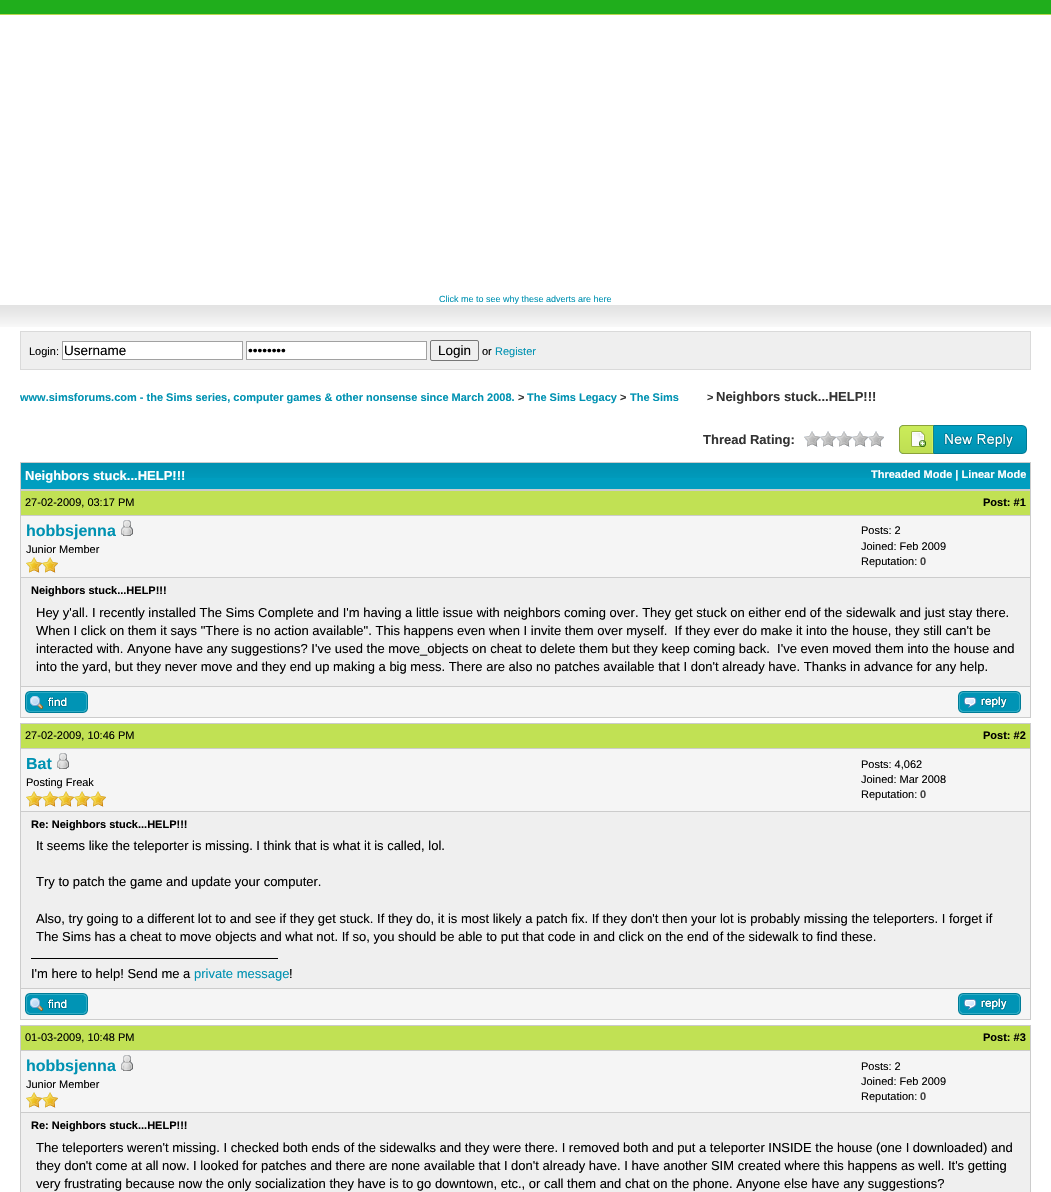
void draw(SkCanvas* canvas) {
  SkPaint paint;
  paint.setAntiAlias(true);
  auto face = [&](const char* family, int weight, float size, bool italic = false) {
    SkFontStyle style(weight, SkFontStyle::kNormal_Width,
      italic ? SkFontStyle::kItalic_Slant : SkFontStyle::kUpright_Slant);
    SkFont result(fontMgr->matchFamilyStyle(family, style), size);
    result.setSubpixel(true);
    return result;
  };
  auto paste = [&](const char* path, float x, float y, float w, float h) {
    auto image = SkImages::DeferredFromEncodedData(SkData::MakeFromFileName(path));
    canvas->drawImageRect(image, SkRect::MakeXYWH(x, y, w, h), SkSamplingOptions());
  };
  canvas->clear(0xffffffff);
  paint.setColor(0xff20ae1c);
  canvas->drawRect(SkRect::MakeXYWH(0, 0, 1051, 14), paint);
  paint.setColor(0xffb7d64e);
  canvas->drawRect(SkRect::MakeXYWH(0, 14, 1051, 1), paint);
  paste("img/1.png", 0, 305, 1051, 22);
  paint.setColor(0xffefefef);
  canvas->drawRect(SkRect::MakeXYWH(20.5f, 331.5f, 1010, 38), paint);
  paint.setStroke(true);
  paint.setStrokeWidth(1);
  paint.setColor(0xffdadada);
  canvas->drawRect(SkRect::MakeXYWH(20.5f, 331.5f, 1010, 38), paint);
  paint.setStroke(false);
  paint.setColor(0xffffffff);
  canvas->drawRect(SkRect::MakeXYWH(62.5f, 341.5f, 180, 18), paint);
  paint.setStroke(true);
  paint.setColor(0xffa1a1a1);
  canvas->drawRect(SkRect::MakeXYWH(62.5f, 341.5f, 180, 18), paint);
  paint.setStroke(false);
  paint.setColor(0xffffffff);
  canvas->drawRect(SkRect::MakeXYWH(246.5f, 341.5f, 180, 18), paint);
  paint.setStroke(true);
  paint.setColor(0xffa1a1a1);
  canvas->drawRect(SkRect::MakeXYWH(246.5f, 341.5f, 180, 18), paint);
  paint.setColor(0xff767676);
  canvas->drawRoundRect(SkRect::MakeXYWH(430.5f, 340.5f, 48, 20), 1.5f, 1.5f, paint);
  paste("img/2.png", 804, 431, 80, 16);
  paste("img/3.png", 899, 425, 128, 29);
  paint.setStroke(false);
  paint.setColor(0xffcccccc);
  canvas->drawRect(SkRect::MakeXYWH(20, 462, 1011, 256), paint);
  paint.setColor(0xff009ec0);
  canvas->drawRect(SkRect::MakeXYWH(21, 478, 1009, 11), paint);
  paste("img/4.png", 21, 463, 1009, 15);
  paint.setColor(0xffc1e154);
  canvas->drawRect(SkRect::MakeXYWH(21, 491, 1009, 24), paint);
  paint.setColor(0xfff5f5f5);
  canvas->drawRect(SkRect::MakeXYWH(21, 516, 1009, 61), paint);
  paste("img/5.png", 121, 520, 12, 16);
  paste("img/6.png", 26, 557, 16, 16);
  paste("img/6.png", 42, 557, 16, 16);
  paint.setColor(0xffefefef);
  canvas->drawRect(SkRect::MakeXYWH(21, 578, 1009, 108), paint);
  paint.setColor(0xfff5f5f5);
  canvas->drawRect(SkRect::MakeXYWH(21, 687, 1009, 30), paint);
  paste("img/7.png", 25, 691, 63, 22);
  paste("img/8.png", 958, 691, 63, 22);
  {
    const struct { float x, y, w, h; SkColor color; } items[] = {
      {20, 723, 1011, 297, 0xffcccccc},
      {21, 724, 1009, 24, 0xffc1e154},
      {21, 749, 1009, 62, 0xfff5f5f5},
    };
    for (auto [x, y, w, h, color] : items) {
      paint.setColor(color);
      canvas->drawRect(SkRect::MakeXYWH(x, y, w, h), paint);
    }
  }
  paste("img/5.png", 57, 753, 12, 16);
  paste("img/6.png", 26, 791, 16, 16);
  paste("img/6.png", 42, 791, 16, 16);
  paste("img/6.png", 58, 791, 16, 16);
  paste("img/6.png", 74, 791, 16, 16);
  paste("img/6.png", 90, 791, 16, 16);
  {
    const struct { float x, y, w, h; SkColor color; } items[] = {
      {21, 812, 1009, 176, 0xffefefef},
      {31, 958, 247, 1, 0xff000000},
      {21, 989, 1009, 30, 0xfff5f5f5},
    };
    for (auto [x, y, w, h, color] : items) {
      paint.setColor(color);
      canvas->drawRect(SkRect::MakeXYWH(x, y, w, h), paint);
    }
  }
  paste("img/7.png", 25, 993, 63, 22);
  paste("img/8.png", 958, 993, 63, 22);
  {
    const struct { float x, y, w, h; SkColor color; } items[] = {
      {20, 1025, 1011, 167, 0xffcccccc},
      {21, 1026, 1009, 24, 0xffc1e154},
      {21, 1051, 1009, 61, 0xfff5f5f5},
    };
    for (auto [x, y, w, h, color] : items) {
      paint.setColor(color);
      canvas->drawRect(SkRect::MakeXYWH(x, y, w, h), paint);
    }
  }
  paste("img/5.png", 121, 1055, 12, 16);
  paste("img/6.png", 26, 1092, 16, 16);
  paste("img/6.png", 42, 1092, 16, 16);
  paint.setColor(0xffefefef);
  canvas->drawRect(SkRect::MakeXYWH(21, 1113, 1009, 79), paint);
  auto f0 = face("Liberation Sans", 400, 9);
  paint.setColor(0xff0092b2);
  canvas->drawString("Click me to see why these adverts are here", 439, 302, f0, paint);
  auto f1 = face("Liberation Sans", 400, 11);
  paint.setColor(0xff000000);
  canvas->drawString("Login:", 29, 355, f1, paint);
  auto f2 = face("Liberation Sans", 400, 13.5f);
  {
    const struct { const char* s; float x, y; } items[] = {
      {"Username", 64, 355},
      {"••••••••", 248, 355},
      {"Login", 438, 355},
    };
    for (auto [s, x, y] : items) {
      canvas->drawString(s, x, y, f2, paint);
    }
  }
  canvas->drawString("or", 482, 355, f1, paint);
  paint.setColor(0xff0092b2);
  canvas->drawString("Register", 495, 355, f1, paint);
  auto f3 = face("Liberation Sans", 700, 11);
  canvas->drawString("www.simsforums.com - the Sims series, computer games & other nonsense since March 2008.", 20, 401, f3, paint);
  paint.setColor(0xff333333);
  canvas->drawString(">", 518, 401, f3, paint);
  paint.setColor(0xff0092b2);
  canvas->drawString("The Sims Legacy", 527, 401, f3, paint);
  paint.setColor(0xff333333);
  canvas->drawString(">", 620, 401, f3, paint);
  paint.setColor(0xff0092b2);
  canvas->drawString("The Sims", 630, 401, f3, paint);
  paint.setColor(0xff333333);
  canvas->drawString(">", 707, 401, f3, paint);
  auto f4 = face("Liberation Sans", 700, 13);
  canvas->drawString("Neighbors stuck...HELP!!!", 716, 401, f4, paint);
  canvas->drawString("Thread Rating:", 703, 444, f4, paint);
  paint.setColor(0xffffffff);
  canvas->drawString("Neighbors stuck...HELP!!!", 25, 480, f4, paint);
  canvas->drawString("Threaded Mode | Linear Mode", 871, 478, f3, paint);
  paint.setColor(0xff000000);
  canvas->drawString("27-02-2009, 03:17 PM", 25, 506, f1, paint);
  canvas->drawString("Post: #1", 983, 506, f3, paint);
  auto f5 = face("Liberation Sans", 700, 16);
  paint.setColor(0xff0092b2);
  canvas->drawString("hobbsjenna", 26, 536, f5, paint);
  paint.setColor(0xff000000);
  {
    const struct { const char* s; float x, y; } items[] = {
      {"Junior Member", 26, 553},
      {"Posts: 2", 861, 534},
      {"Joined: Feb 2009", 861, 550},
      {"Reputation:", 861, 565},
    };
    for (auto [s, x, y] : items) {
      canvas->drawString(s, x, y, f1, paint);
    }
  }
  paint.setColor(0xff444444);
  canvas->drawString("0", 920, 565, f3, paint);
  paint.setColor(0xff000000);
  canvas->drawString("Neighbors stuck...HELP!!!", 31, 594, f3, paint);
  auto f6 = face("Liberation Sans", 400, 13);
  {
    const struct { const char* s; float x, y; } items[] = {
      {"Hey y'all. I recently installed The Sims Complete and I'm having a little issue with neighbors coming over. They get stuck on either end of the sidewalk and just stay there.", 36, 617},
      {"When I click on them it says \"There is no action available\". This happens even when I invite them over myself.  If they ever do make it into the house, they still can't be", 36, 635},
      {"interacted with. Anyone have any suggestions? I've used the move_objects on cheat to delete them but they keep coming back.  I've even moved them into the house and", 36, 653},
      {"into the yard, but they never move and they end up making a big mess. There are also no patches available that I don't already have. Thanks in advance for any help.", 36, 671},
    };
    for (auto [s, x, y] : items) {
      canvas->drawString(s, x, y, f6, paint);
    }
  }
  canvas->drawString("27-02-2009, 10:46 PM", 25, 739, f1, paint);
  canvas->drawString("Post: #2", 983, 739, f3, paint);
  paint.setColor(0xff0092b2);
  canvas->drawString("Bat", 26, 769, f5, paint);
  paint.setColor(0xff000000);
  {
    const struct { const char* s; float x, y; } items[] = {
      {"Posting Freak", 26, 786},
      {"Posts: 4,062", 861, 768},
      {"Joined: Mar 2008", 861, 783},
      {"Reputation:", 861, 798},
    };
    for (auto [s, x, y] : items) {
      canvas->drawString(s, x, y, f1, paint);
    }
  }
  paint.setColor(0xff444444);
  canvas->drawString("0", 920, 798, f3, paint);
  paint.setColor(0xff000000);
  canvas->drawString("Re: Neighbors stuck...HELP!!!", 31, 828, f3, paint);
  {
    const struct { const char* s; float x, y; } items[] = {
      {"It seems like the teleporter is missing. I think that is what it is called, lol.", 36, 850},
      {"Try to patch the game and update your computer.", 36, 886},
      {"Also, try going to a different lot to and see if they get stuck. If they do, it is most likely a patch fix. If they don't then your lot is probably missing the teleporters. I forget if", 36, 923},
      {"The Sims has a cheat to move objects and what not. If so, you should be able to put that code in and click on the end of the sidewalk to find these.", 36, 941},
      {"I'm here to help! Send me a", 31, 978},
    };
    for (auto [s, x, y] : items) {
      canvas->drawString(s, x, y, f6, paint);
    }
  }
  paint.setColor(0xff0092b2);
  canvas->drawString("private message", 194, 978, f6, paint);
  paint.setColor(0xff000000);
  canvas->drawString("!", 289, 978, f6, paint);
  canvas->drawString("01-03-2009, 10:48 PM", 25, 1041, f1, paint);
  canvas->drawString("Post: #3", 983, 1041, f3, paint);
  paint.setColor(0xff0092b2);
  canvas->drawString("hobbsjenna", 26, 1071, f5, paint);
  paint.setColor(0xff000000);
  {
    const struct { const char* s; float x, y; } items[] = {
      {"Junior Member", 26, 1088},
      {"Posts: 2", 861, 1070},
      {"Joined: Feb 2009", 861, 1085},
      {"Reputation:", 861, 1100},
    };
    for (auto [s, x, y] : items) {
      canvas->drawString(s, x, y, f1, paint);
    }
  }
  paint.setColor(0xff444444);
  canvas->drawString("0", 920, 1100, f3, paint);
  paint.setColor(0xff000000);
  canvas->drawString("Re: Neighbors stuck...HELP!!!", 31, 1129, f3, paint);
  {
    const struct { const char* s; float x, y; } items[] = {
      {"The teleporters weren't missing. I checked both ends of the sidewalks and they were there. I removed both and put a teleporter INSIDE the house (one I downloaded) and", 36, 1152},
      {"they don't come at all now. I looked for patches and there are none available that I don't already have. I have another SIM created where this happens as well. It's getting", 36, 1170},
      {"very frustrating because now the only socialization they have is to go downtown, etc., or call them and chat on the phone. Anyone else have any suggestions?", 36, 1188},
    };
    for (auto [s, x, y] : items) {
      canvas->drawString(s, x, y, f6, paint);
    }
  }
}
